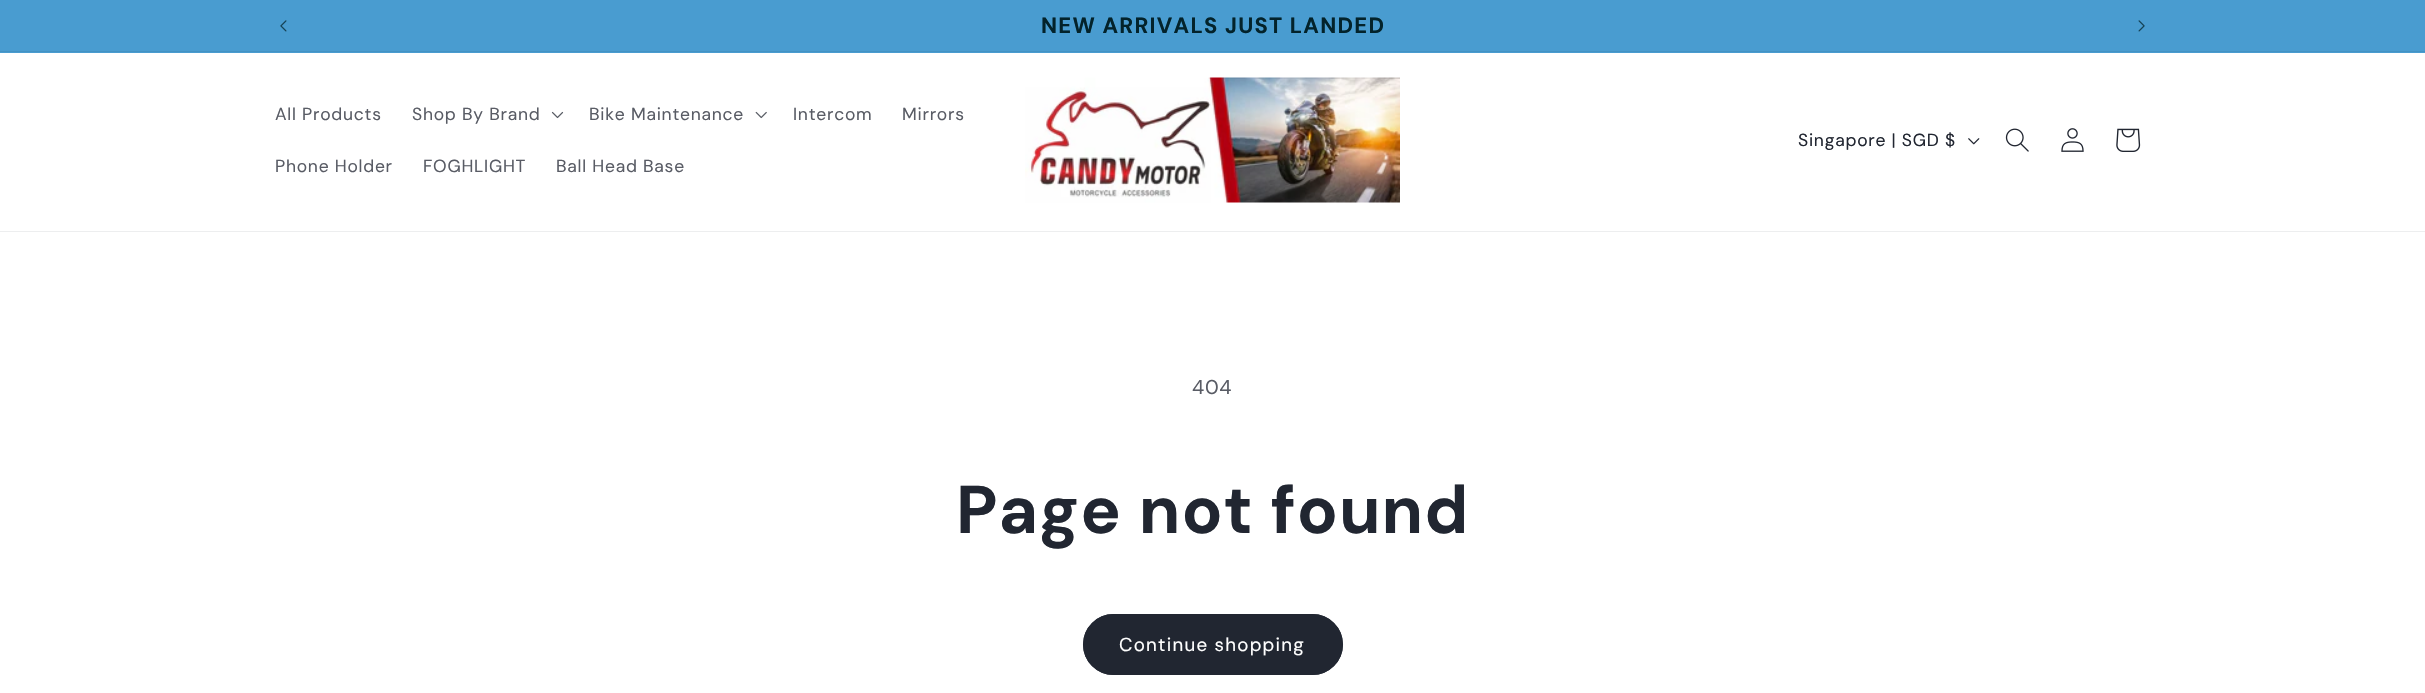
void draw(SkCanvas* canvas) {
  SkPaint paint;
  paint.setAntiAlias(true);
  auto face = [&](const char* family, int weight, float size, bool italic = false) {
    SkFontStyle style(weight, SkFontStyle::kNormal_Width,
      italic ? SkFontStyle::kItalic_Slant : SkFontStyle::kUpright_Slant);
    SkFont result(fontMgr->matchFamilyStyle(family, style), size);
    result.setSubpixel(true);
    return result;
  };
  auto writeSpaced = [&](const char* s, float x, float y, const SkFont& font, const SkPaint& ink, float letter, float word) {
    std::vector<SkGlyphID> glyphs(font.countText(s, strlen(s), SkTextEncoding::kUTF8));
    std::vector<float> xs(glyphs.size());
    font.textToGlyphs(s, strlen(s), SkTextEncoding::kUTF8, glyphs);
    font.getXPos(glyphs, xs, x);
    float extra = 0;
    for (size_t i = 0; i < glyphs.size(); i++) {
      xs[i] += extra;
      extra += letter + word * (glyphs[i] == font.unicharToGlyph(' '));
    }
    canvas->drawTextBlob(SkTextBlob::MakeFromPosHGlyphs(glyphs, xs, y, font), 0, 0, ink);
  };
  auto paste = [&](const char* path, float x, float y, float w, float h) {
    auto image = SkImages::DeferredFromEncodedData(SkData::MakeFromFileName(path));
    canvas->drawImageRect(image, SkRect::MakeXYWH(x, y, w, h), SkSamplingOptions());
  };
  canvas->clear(0xffffffff);
  paint.setColor(0xff499cd0);
  canvas->drawRect(SkRect::MakeXYWH(0, 0, 2425, 53), paint);
  paint.setColor(0xff4392c3);
  canvas->drawRect(SkRect::MakeXYWH(0, 51, 2425, 1), paint);
  paste("img/1.png", 280, 20, 7, 12);
  paste("img/2.png", 2138, 20, 7, 12);
  paint.setColor(0xffedeeef);
  canvas->drawRect(SkRect::MakeXYWH(0, 231, 2425, 1), paint);
  paste("img/3.png", 551, 111, 13, 8);
  paste("img/4.png", 755, 111, 12, 8);
  paste("img/5.png", 1025, 77, 375, 126);
  paste("img/6.png", 1968, 138, 12, 7);
  paste("img/7.png", 2005, 128, 24, 24);
  paste("img/8.png", 2061, 128, 23, 24);
  paste("img/9.png", 2116, 128, 25, 24);
  paint.setColor(0xff212631);
  canvas->drawRoundRect(SkRect::MakeXYWH(1083, 614, 260, 61), 30.5f, 30.5f, paint);
  paint.setStroke(true);
  paint.setStrokeWidth(3);
  canvas->drawRoundRect(SkRect::MakeXYWH(1084.5f, 615.5f, 257, 58), 29, 29, paint);
  auto f0 = face("DM Sans", 700, 22);
  paint.setStroke(false);
  paint.setColor(0xff03232b);
  writeSpaced("NEW ARRIVALS JUST LANDED", 1041, 33, f0, paint, 1.25f, 0);
  auto f1 = face("DM Sans", 400, 17.5f);
  paint.setColor(0xff595c65);
  {
    const struct { const char* s; float x, y; } items[] = {
      {"All Products", 275, 120},
      {"Shop By Brand", 412, 120},
      {"Bike Maintenance", 589, 120},
      {"Intercom", 793, 120},
      {"Mirrors", 902, 120},
      {"Phone Holder", 275, 172},
      {"FOGHLIGHT", 423, 172},
      {"Ball Head Base", 556, 172},
    };
    for (auto [s, x, y] : items) {
      writeSpaced(s, x, y, f1, paint, 0.75f, 0);
    }
  }
  paint.setColor(0xff212631);
  writeSpaced("Singapore | SGD $", 1798, 146, f1, paint, 0.75f, 0);
  auto f2 = face("DM Sans", 400, 20);
  paint.setColor(0xff595c65);
  writeSpaced("404", 1192, 394, f2, paint, 0.75f, 0);
  auto f3 = face("DM Sans", 700, 67.5f);
  paint.setColor(0xff212631);
  writeSpaced("Page not found", 956, 533, f3, paint, 1, 0);
  auto f4 = face("DM Sans", 400, 18.75f);
  paint.setColor(0xffffffff);
  writeSpaced("Continue shopping", 1119, 651, f4, paint, 1.25f, 0);
}
